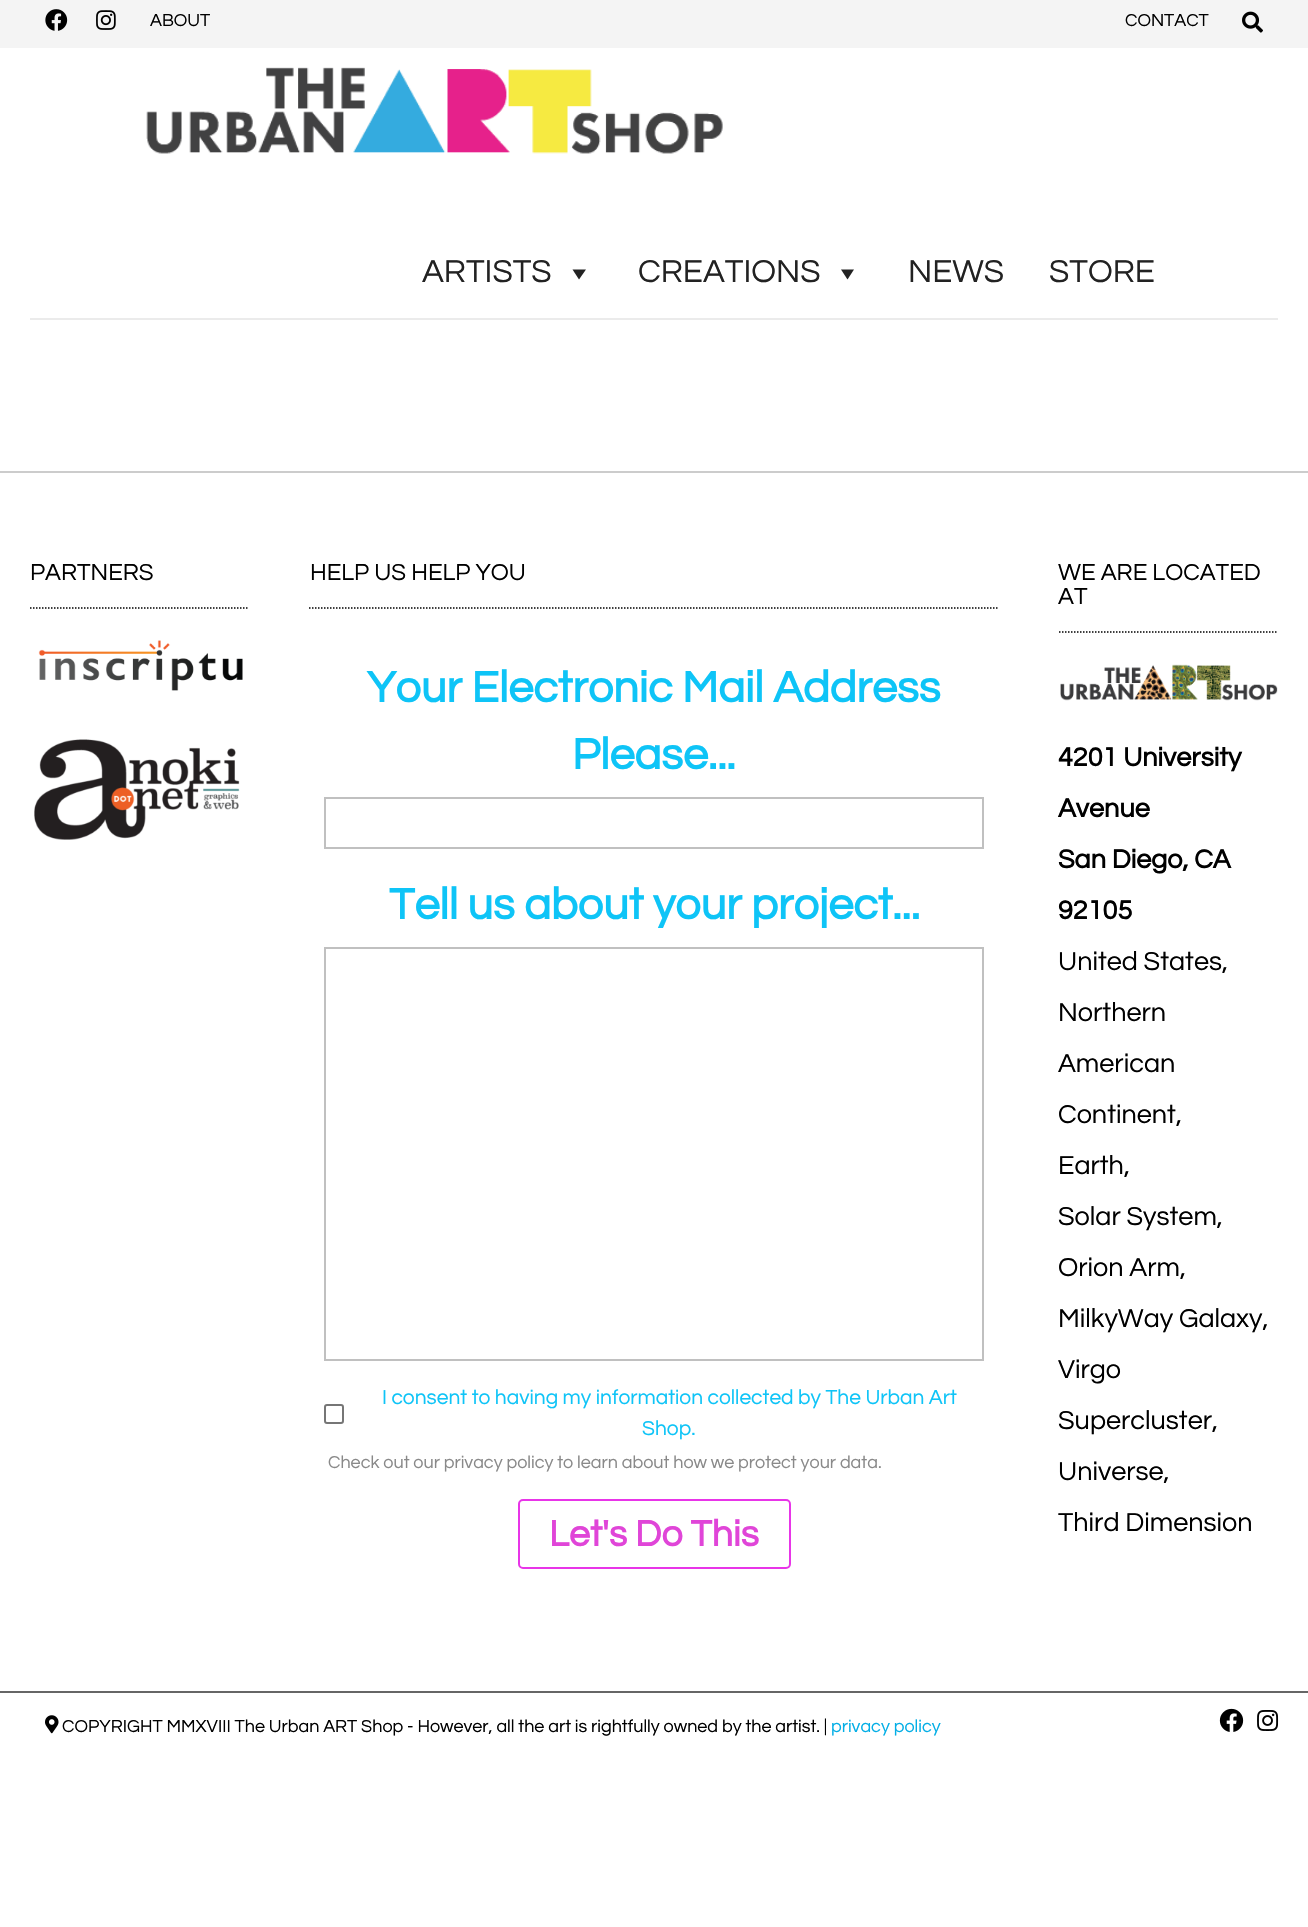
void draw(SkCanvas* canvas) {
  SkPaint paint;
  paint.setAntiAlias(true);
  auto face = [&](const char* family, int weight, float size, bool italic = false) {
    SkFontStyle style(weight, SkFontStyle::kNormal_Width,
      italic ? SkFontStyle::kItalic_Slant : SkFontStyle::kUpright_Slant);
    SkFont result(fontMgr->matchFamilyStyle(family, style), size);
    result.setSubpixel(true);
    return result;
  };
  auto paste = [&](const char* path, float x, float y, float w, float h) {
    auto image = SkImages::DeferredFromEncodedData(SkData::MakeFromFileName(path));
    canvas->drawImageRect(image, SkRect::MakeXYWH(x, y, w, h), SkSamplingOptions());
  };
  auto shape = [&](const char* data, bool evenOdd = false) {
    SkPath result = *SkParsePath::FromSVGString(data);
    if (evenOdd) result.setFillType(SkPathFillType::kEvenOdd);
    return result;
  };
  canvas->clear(0xffffffff);
  paint.setColor(0xfff4f4f4);
  canvas->drawRect(SkRect::MakeXYWH(0, 0, 1308, 48), paint);
  paste("img/1.png", 45, 9, 23, 22);
  paste("img/2.png", 96, 10, 20, 20);
  paste("img/3.png", 1242, 11, 21, 22);
  paste("img/4.png", 146, 67, 577, 87);
  paint.setColor(0xff222222);
  canvas->drawPath(shape("M586 269.5L579 279.5L572.5 269.5Z"), paint);
  canvas->drawPath(shape("M854 269.5L847.5 279.5L841 269.5Z"), paint);
  paint.setColor(0xffebebeb);
  canvas->drawRect(SkRect::MakeXYWH(30, 318, 1248, 2), paint);
  paint.setColor(0xffcccccc);
  canvas->drawRect(SkRect::MakeXYWH(0, 471, 1308, 2), paint);
  paint.setStroke(true);
  paint.setStrokeWidth(1.5f);
  paint.setColor(0xff000000);
  paint.setPathEffect(SkDashPathEffect::Make({{1.5f, 1.5f}}, 0));
  canvas->drawPath(shape("M30 608H249"), paint);
  paint.setPathEffect(nullptr);
  paste("img/5.png", 38, 640, 205, 51);
  paste("img/6.png", 34, 739, 206, 101);
  paint.setPathEffect(SkDashPathEffect::Make({{1.5f, 1.5f}}, 0));
  canvas->drawPath(shape("M309 608H999"), paint);
  paint.setPathEffect(nullptr);
  paint.setStrokeWidth(2);
  paint.setColor(0xffc0c0c0);
  canvas->drawRect(SkRect::MakeXYWH(325, 798, 658, 50), paint);
  canvas->drawRect(SkRect::MakeXYWH(325, 948, 658, 412), paint);
  paint.setColor(0xff767676);
  canvas->drawRoundRect(SkRect::MakeXYWH(325, 1405, 18, 18), 2, 2, paint);
  paint.setColor(0xffe835e8);
  canvas->drawRoundRect(SkRect::MakeXYWH(519, 1500, 271, 68), 4, 4, paint);
  paint.setStrokeWidth(1.5f);
  paint.setColor(0xff000000);
  paint.setPathEffect(SkDashPathEffect::Make({{1.5f, 1.5f}}, 0));
  canvas->drawPath(shape("M1059 632H1278"), paint);
  paint.setPathEffect(nullptr);
  paste("img/7.png", 1060, 664, 218, 37);
  paint.setStroke(false);
  paint.setColor(0xff666666);
  canvas->drawRect(SkRect::MakeXYWH(0, 1691, 1308, 2), paint);
  paste("img/8.png", 45, 1715, 14, 19);
  paste("img/9.png", 1219, 1708, 25, 24);
  paste("img/10.png", 1257, 1710, 22, 21);
  auto f0 = face("Questrial", 400, 18);
  paint.setColor(0xff000000);
  canvas->drawString("ABOUT", 150, 26, f0, paint);
  canvas->drawString("CONTACT", 1125, 26, f0, paint);
  auto f1 = face("Questrial", 400, 33);
  paint.setColor(0xff222222);
  {
    const struct { const char* s; float x, y; } items[] = {
      {"ARTISTS", 422, 282},
      {"CREATIONS", 638, 282},
      {"NEWS", 908, 282},
      {"STORE", 1049, 282},
    };
    for (auto [s, x, y] : items) {
      canvas->drawString(s, x, y, f1, paint);
    }
  }
  auto f2 = face("Questrial", 400, 24);
  paint.setColor(0xff000000);
  canvas->drawString("PARTNERS", 30, 580, f2, paint);
  canvas->drawString("HELP US HELP YOU", 310, 580, f2, paint);
  auto f3 = face("Questrial", 700, 45);
  paint.setColor(0xff0ec4f7);
  {
    const struct { const char* s; float x, y; } items[] = {
      {"Your Electronic Mail Address", 367, 702},
      {"Please...", 572, 769},
      {"Tell us about your project...", 389, 919},
    };
    for (auto [s, x, y] : items) {
      canvas->drawString(s, x, y, f3, paint);
    }
  }
  auto f4 = face("Questrial", 400, 21);
  canvas->drawString("I consent to having my information collected by The Urban Art", 382, 1404, f4, paint);
  canvas->drawString("Shop.", 642, 1435, f4, paint);
  paint.setColor(0xff898989);
  canvas->drawString("Check out our privacy policy to learn about how we protect your data.", 328, 1468, f0, paint);
  auto f5 = face("Questrial", 700, 37.5f);
  paint.setColor(0xffe045d8);
  canvas->drawString("Let's Do This", 549, 1546, f5, paint);
  paint.setColor(0xff000000);
  canvas->drawString("WE ARE LOCATED", 1058, 580, f2, paint);
  canvas->drawString("AT", 1058, 604, f2, paint);
  auto f6 = face("Questrial", 700, 27);
  {
    const struct { const char* s; float x, y; } items[] = {
      {"4201 University", 1058, 766},
      {"Avenue", 1058, 817},
      {"San Diego, CA", 1058, 868},
      {"92105", 1058, 919},
    };
    for (auto [s, x, y] : items) {
      canvas->drawString(s, x, y, f6, paint);
    }
  }
  auto f7 = face("Questrial", 400, 27);
  {
    const struct { const char* s; float x, y; } items[] = {
      {"United States,", 1058, 970},
      {"Northern", 1058, 1021},
      {"American", 1058, 1072},
      {"Continent,", 1058, 1123},
      {"Earth,", 1058, 1174},
      {"Solar System,", 1058, 1225},
      {"Orion Arm,", 1058, 1276},
      {"MilkyWay Galaxy,", 1058, 1327},
      {"Virgo", 1058, 1378},
      {"Supercluster,", 1058, 1429},
      {"Universe,", 1058, 1480},
      {"Third Dimension", 1058, 1531},
    };
    for (auto [s, x, y] : items) {
      canvas->drawString(s, x, y, f7, paint);
    }
  }
  canvas->drawString("COPYRIGHT MMXVIII The Urban ART Shop - However, all the art is rightfully owned by the artist. |", 62, 1732, f0, paint);
  paint.setColor(0xff03aee6);
  canvas->drawString("privacy policy", 831, 1732, f0, paint);
}
